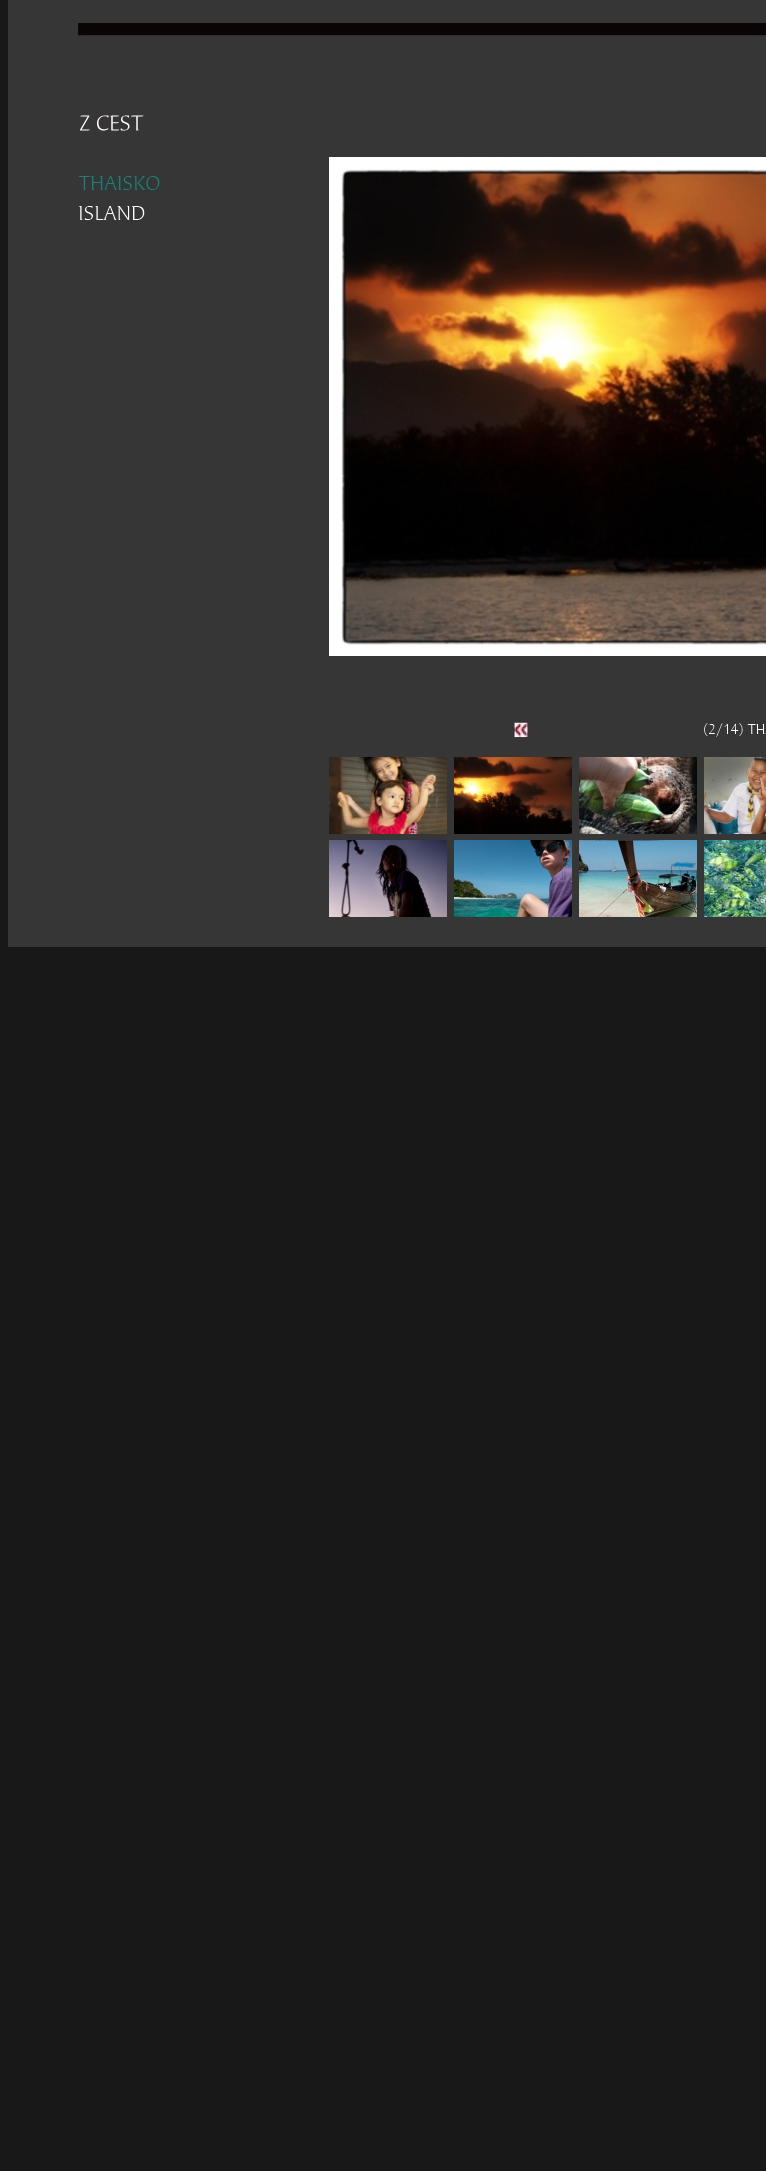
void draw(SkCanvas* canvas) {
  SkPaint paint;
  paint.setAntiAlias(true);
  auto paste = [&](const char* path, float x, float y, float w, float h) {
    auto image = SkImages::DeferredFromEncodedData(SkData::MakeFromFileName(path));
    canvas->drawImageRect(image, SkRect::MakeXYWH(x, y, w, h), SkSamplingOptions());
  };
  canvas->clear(0xff181818);
  paint.setColor(0xff363636);
  canvas->drawRect(SkRect::MakeXYWH(8, 0, 758, 107), paint);
  paste("img/1.png", 77, 22, 689, 14);
  canvas->drawRect(SkRect::MakeXYWH(8, 107, 758, 600), paint);
  paste("img/2.png", 80, 115, 64, 16);
  paste("img/3.png", 78, 175, 83, 16);
  paste("img/4.png", 79, 206, 66, 14);
  paste("img/5.png", 329, 157, 437, 499);
  canvas->drawRect(SkRect::MakeXYWH(8, 707, 758, 240), paint);
  paste("img/6.png", 512, 721, 18, 17);
  paste("img/7.png", 677, 720, 89, 20);
  paste("img/8.png", 329, 757, 118, 77);
  paste("img/9.png", 454, 757, 118, 77);
  paste("img/10.png", 579, 757, 118, 77);
  paste("img/11.png", 704, 757, 62, 77);
  paste("img/12.png", 329, 840, 118, 77);
  paste("img/13.png", 454, 840, 118, 77);
  paste("img/14.png", 579, 840, 118, 77);
  paste("img/15.png", 704, 840, 62, 77);
}
